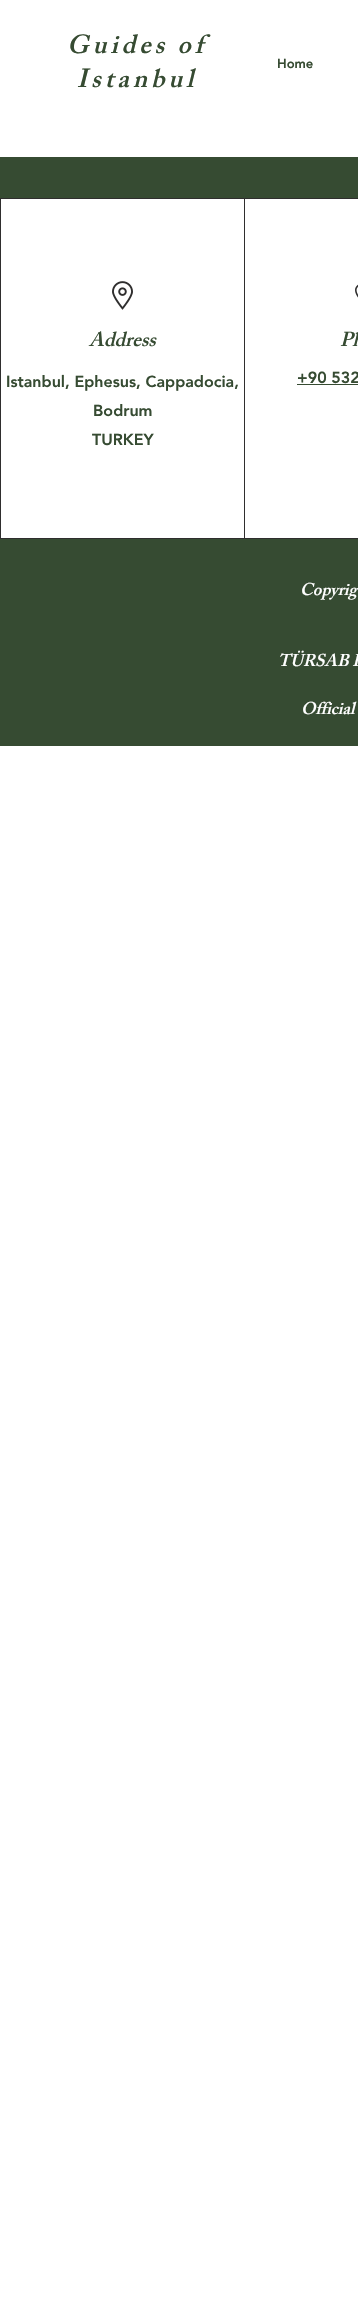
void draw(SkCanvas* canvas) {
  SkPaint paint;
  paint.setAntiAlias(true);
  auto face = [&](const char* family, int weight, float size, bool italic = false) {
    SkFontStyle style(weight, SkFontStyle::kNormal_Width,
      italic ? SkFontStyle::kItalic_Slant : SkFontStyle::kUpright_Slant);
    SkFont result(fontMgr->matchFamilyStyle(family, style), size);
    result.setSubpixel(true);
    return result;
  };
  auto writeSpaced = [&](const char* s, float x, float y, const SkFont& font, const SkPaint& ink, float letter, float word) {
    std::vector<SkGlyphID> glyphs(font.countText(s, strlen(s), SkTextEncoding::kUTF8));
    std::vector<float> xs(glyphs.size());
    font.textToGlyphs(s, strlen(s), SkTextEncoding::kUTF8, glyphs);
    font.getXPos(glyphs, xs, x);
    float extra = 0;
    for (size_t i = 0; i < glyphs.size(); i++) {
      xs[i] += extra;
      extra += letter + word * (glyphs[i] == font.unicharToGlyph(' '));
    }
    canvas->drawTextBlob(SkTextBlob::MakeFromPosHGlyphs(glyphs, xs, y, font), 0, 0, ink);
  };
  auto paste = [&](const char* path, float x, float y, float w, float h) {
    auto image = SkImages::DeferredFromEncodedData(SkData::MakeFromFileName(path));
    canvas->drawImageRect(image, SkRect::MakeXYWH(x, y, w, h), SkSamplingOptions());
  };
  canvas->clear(0xffffffff);
  {
    const struct { float x, y, w, h; SkColor color; } items[] = {
      {0, 157, 358, 589, 0xff364b32},
      {0, 198, 358, 341, 0xff2f2e2e},
      {1, 199, 243, 339, 0xffffffff},
    };
    for (auto [x, y, w, h, color] : items) {
      paint.setColor(color);
      canvas->drawRect(SkRect::MakeXYWH(x, y, w, h), paint);
    }
  }
  paste("img/1.png", 112, 281, 21, 29);
  canvas->drawRect(SkRect::MakeXYWH(245, 199, 113, 339), paint);
  paste("img/2.png", 355, 284, 3, 14);
  paint.setColor(0xff364b32);
  canvas->drawRect(SkRect::MakeXYWH(297, 384, 61, 1), paint);
  auto f0 = face("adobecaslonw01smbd", 600, 26, true);
  writeSpaced("Guides of", 67, 53, f0, paint, 4, 0);
  writeSpaced("Istanbul", 77, 87, f0, paint, 4, 0);
  auto f1 = face("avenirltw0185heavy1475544", 900, 13);
  canvas->drawString("Home", 277, 68, f1, paint);
  auto f2 = face("adobecaslonw01smbd", 600, 20, true);
  canvas->drawString("Address", 89, 346, f2, paint);
  auto f3 = face("avenirltw0185heavy1475544", 900, 16);
  {
    const struct { const char* s; float x, y; } items[] = {
      {"Istanbul, Ephesus, Cappadocia,", 6, 387},
      {"Bodrum", 93, 416},
      {"TURKEY", 92, 445},
    };
    for (auto [s, x, y] : items) {
      canvas->drawString(s, x, y, f3, paint);
    }
  }
  canvas->drawString("Ph", 340, 346, f2, paint);
  canvas->drawString("+90 532", 297, 383, f3, paint);
  auto f4 = face("adobecaslonw01smbd", 600, 17, true);
  paint.setColor(0xffffffff);
  {
    const struct { const char* s; float x, y; } items[] = {
      {"Copyrig", 300, 595},
      {"TÜRSAB L", 278, 666},
      {"Official", 301, 714},
    };
    for (auto [s, x, y] : items) {
      canvas->drawString(s, x, y, f4, paint);
    }
  }
}
